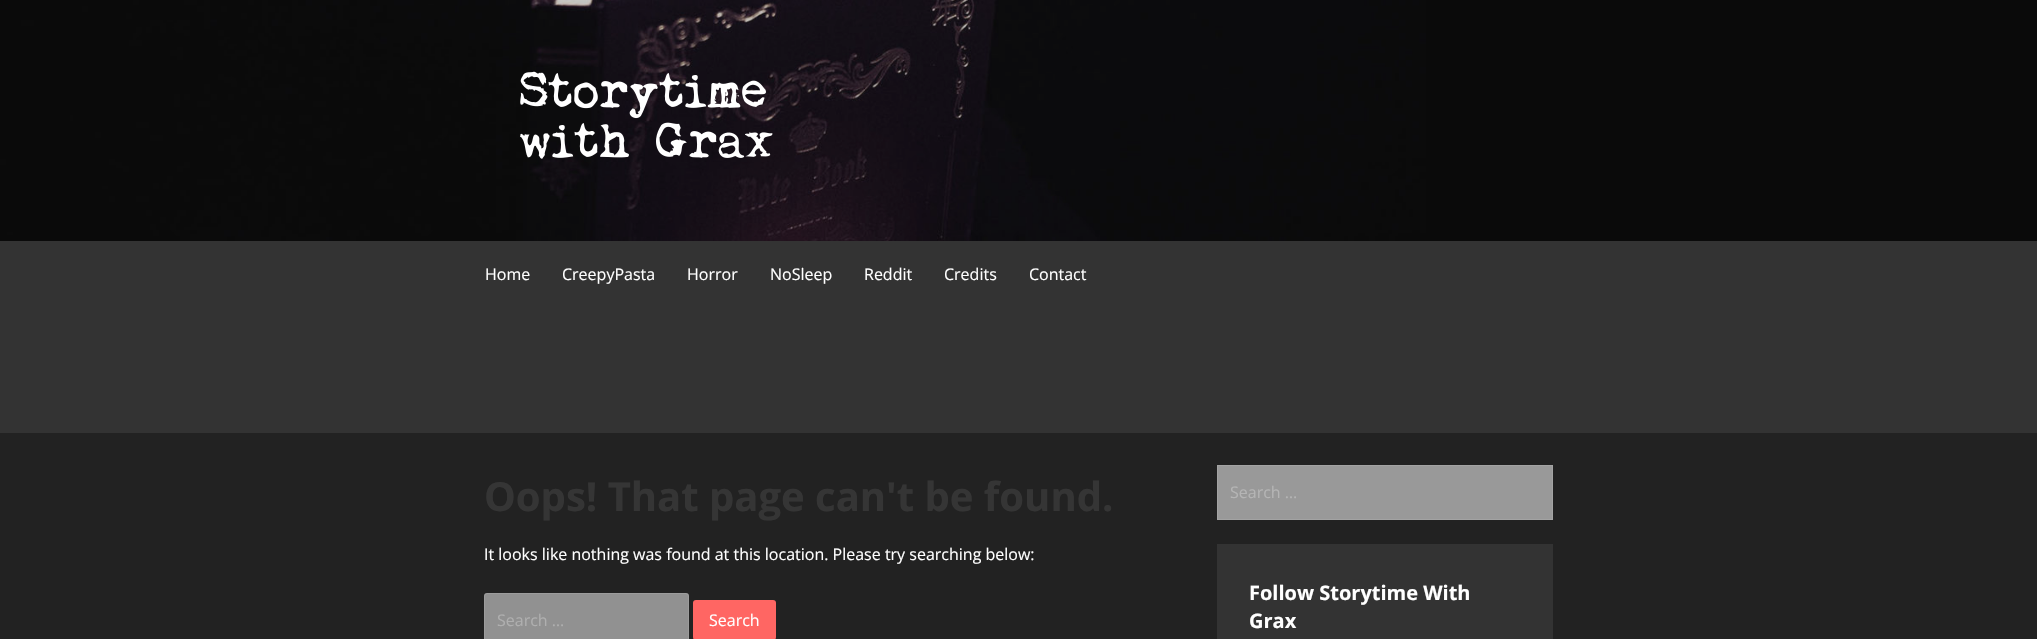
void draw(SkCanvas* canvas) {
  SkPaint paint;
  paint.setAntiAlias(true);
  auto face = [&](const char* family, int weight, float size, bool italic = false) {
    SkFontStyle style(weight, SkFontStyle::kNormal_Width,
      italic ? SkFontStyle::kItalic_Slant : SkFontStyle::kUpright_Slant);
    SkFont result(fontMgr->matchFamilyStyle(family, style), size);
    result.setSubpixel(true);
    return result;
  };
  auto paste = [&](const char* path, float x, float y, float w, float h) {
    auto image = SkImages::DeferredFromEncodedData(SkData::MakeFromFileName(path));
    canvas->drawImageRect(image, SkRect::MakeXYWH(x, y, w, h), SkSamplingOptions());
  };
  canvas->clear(0xff222222);
  paste("img/1.png", 0, 0, 2037, 241);
  paste("img/2.png", 520, 71, 253, 88);
  paint.setColor(0xff333333);
  canvas->drawRect(SkRect::MakeXYWH(0, 241, 2037, 192), paint);
  paint.setColor(0xff919191);
  canvas->drawRoundRect(SkRect::MakeXYWH(484, 593, 205, 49), 3, 3, paint);
  paint.setStroke(true);
  paint.setStrokeWidth(1);
  paint.setColor(0x1affffff);
  canvas->drawRoundRect(SkRect::MakeXYWH(484.5f, 593.5f, 204, 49), 2.5f, 2.5f, paint);
  paint.setStroke(false);
  paint.setColor(0xffff6663);
  canvas->drawRoundRect(SkRect::MakeXYWH(693, 600, 83, 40), 3, 3, paint);
  paint.setColor(0xff999999);
  canvas->drawRect(SkRect::MakeXYWH(1217.5f, 465.5f, 335, 54), paint);
  paint.setStroke(true);
  paint.setColor(0xffa3a3a3);
  canvas->drawRect(SkRect::MakeXYWH(1217.5f, 465.5f, 335, 54), paint);
  paint.setStroke(false);
  paint.setColor(0xff333333);
  canvas->drawRect(SkRect::MakeXYWH(1217, 544, 336, 95), paint);
  auto f0 = face("Open Sans", 400, 16);
  paint.setColor(0xffffffff);
  {
    const struct { const char* s; float x, y; } items[] = {
      {"Home", 485, 280},
      {"CreepyPasta", 562, 280},
      {"Horror", 687, 280},
      {"NoSleep", 770, 280},
      {"Reddit", 864, 280},
      {"Credits", 944, 280},
      {"Contact", 1029, 280},
    };
    for (auto [s, x, y] : items) {
      canvas->drawString(s, x, y, f0, paint);
    }
  }
  auto f1 = face("Open Sans", 700, 40);
  paint.setColor(0xff353535);
  canvas->drawString("Oops! That page can't be found.", 484, 511, f1, paint);
  paint.setColor(0xffffffff);
  canvas->drawString("It looks like nothing was found at this location. Please try searching below:", 484, 560, f0, paint);
  paint.setColor(0xffafafaf);
  canvas->drawString("Search …", 497, 626, f0, paint);
  paint.setColor(0xffffffff);
  canvas->drawString("Search", 709, 626, f0, paint);
  paint.setColor(0xffb5b5b5);
  canvas->drawString("Search …", 1230, 498, f0, paint);
  auto f2 = face("Open Sans", 700, 20);
  paint.setColor(0xffffffff);
  canvas->drawString("Follow Storytime With", 1249, 600, f2, paint);
  canvas->drawString("Grax", 1249, 628, f2, paint);
}
